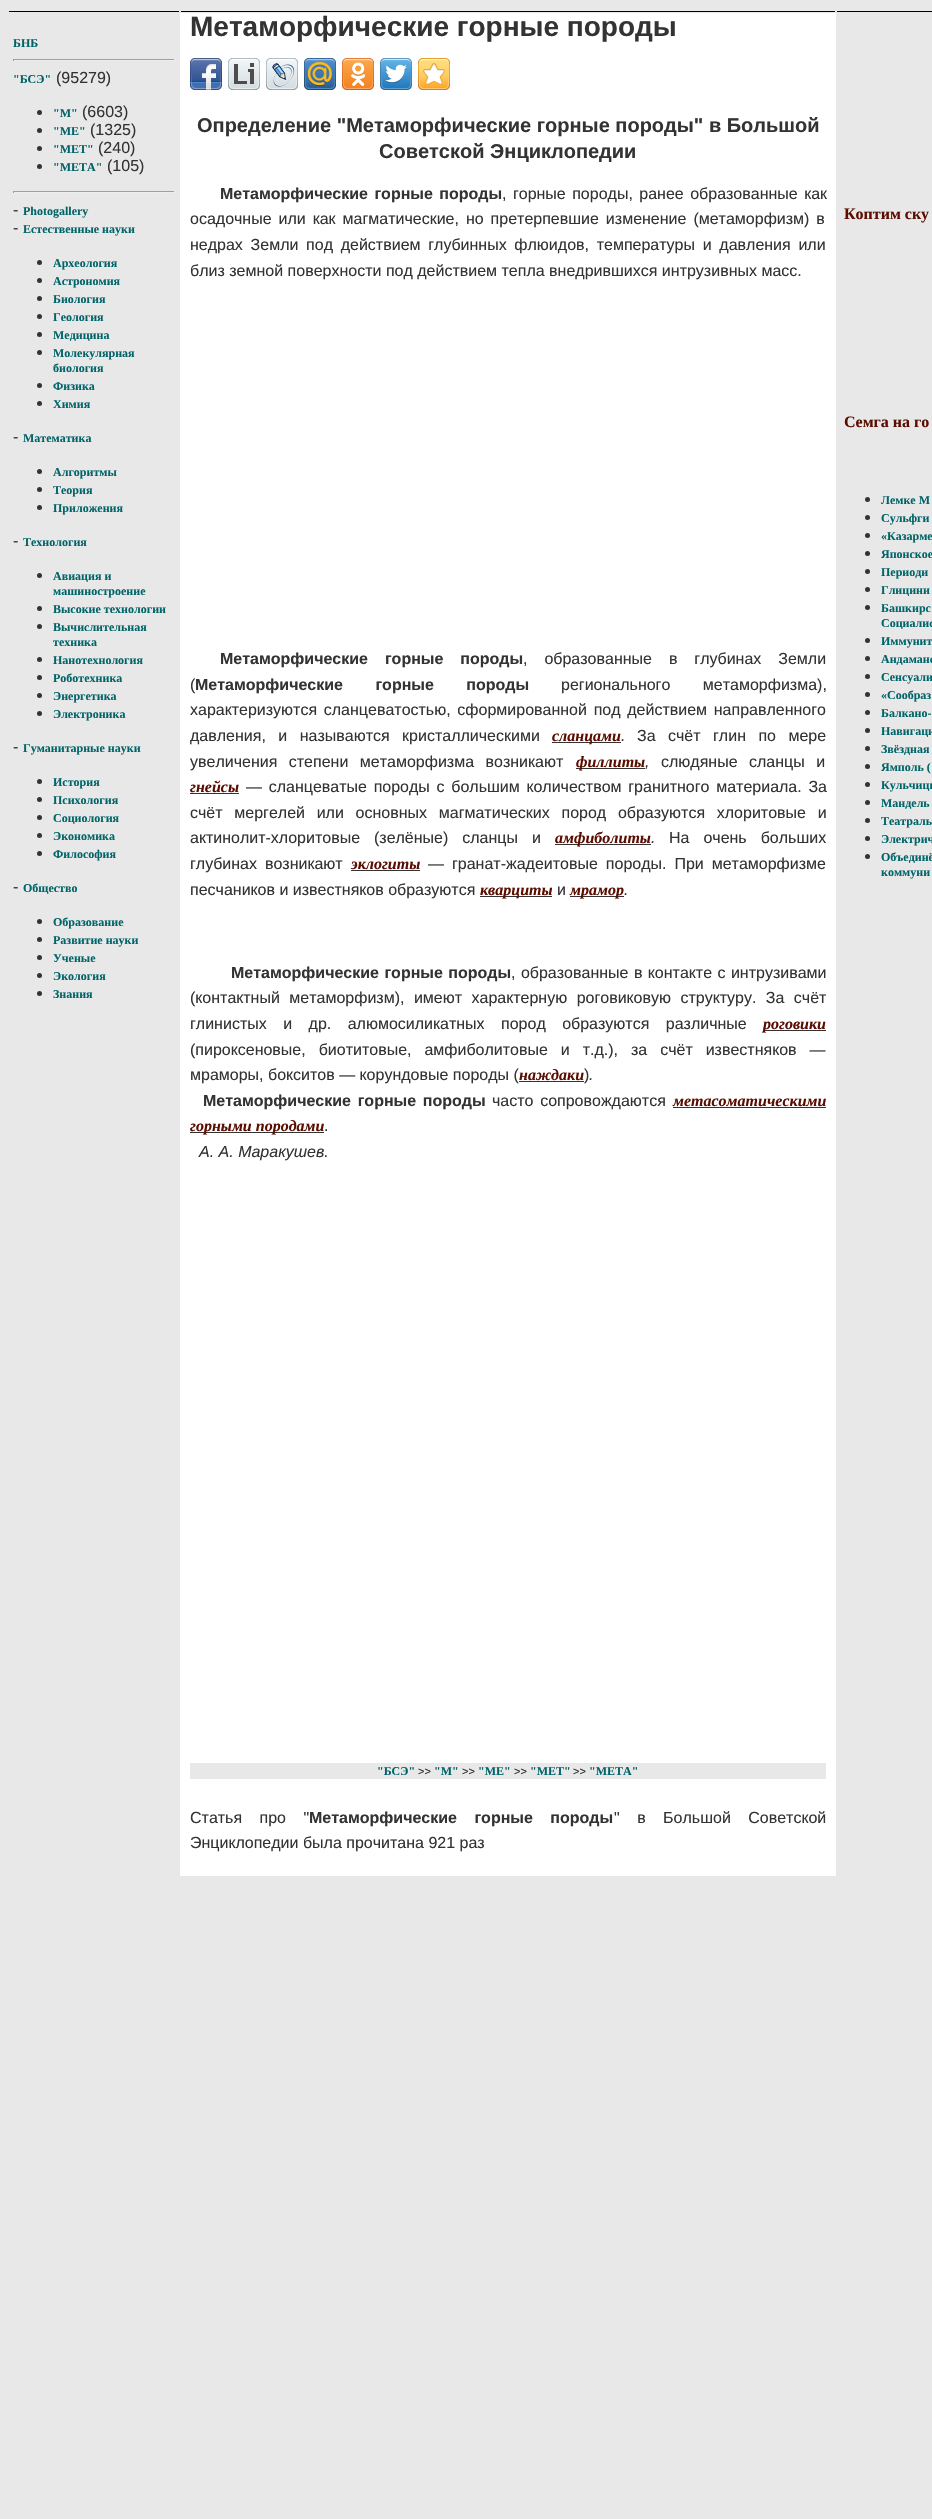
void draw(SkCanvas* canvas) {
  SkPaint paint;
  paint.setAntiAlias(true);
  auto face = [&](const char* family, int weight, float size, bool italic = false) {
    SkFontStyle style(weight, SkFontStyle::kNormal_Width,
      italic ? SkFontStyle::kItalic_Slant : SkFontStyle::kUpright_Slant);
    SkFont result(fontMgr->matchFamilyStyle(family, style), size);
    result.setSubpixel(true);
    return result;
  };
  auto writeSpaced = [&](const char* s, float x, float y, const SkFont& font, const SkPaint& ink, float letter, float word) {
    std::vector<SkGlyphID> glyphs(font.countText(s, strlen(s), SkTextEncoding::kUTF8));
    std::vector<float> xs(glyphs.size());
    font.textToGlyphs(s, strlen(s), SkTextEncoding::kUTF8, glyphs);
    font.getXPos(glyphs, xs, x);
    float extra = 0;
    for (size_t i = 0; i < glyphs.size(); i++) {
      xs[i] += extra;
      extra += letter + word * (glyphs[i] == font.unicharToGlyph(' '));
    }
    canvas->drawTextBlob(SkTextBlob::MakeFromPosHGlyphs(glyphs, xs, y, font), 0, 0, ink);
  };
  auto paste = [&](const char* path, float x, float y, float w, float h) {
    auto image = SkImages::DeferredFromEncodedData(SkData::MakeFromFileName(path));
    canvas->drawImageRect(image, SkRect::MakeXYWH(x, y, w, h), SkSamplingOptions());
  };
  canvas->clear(0xffe8e8e8);
  {
    const struct { float x, y, w, h; SkColor color; } items[] = {
      {9, 11, 170, 1, 0xff000000},
      {181, 11, 654, 1, 0xff000000},
      {837, 11, 95, 1, 0xff000000},
      {13, 59, 162, 1, 0xff9f9f9f},
      {174, 59, 1, 2, 0xffeeeeee},
      {13, 60, 162, 1, 0xffeeeeee},
      {13, 59, 1, 2, 0xff9f9f9f},
    };
    for (auto [x, y, w, h, color] : items) {
      paint.setColor(color);
      canvas->drawRect(SkRect::MakeXYWH(x, y, w, h), paint);
    }
  }
  paint.setColor(0xff333333);
  canvas->drawCircle(39.5f, 112.5f, 2.5f, paint);
  canvas->drawCircle(39.5f, 130.5f, 2.5f, paint);
  canvas->drawCircle(39.5f, 148.5f, 2.5f, paint);
  canvas->drawCircle(39.5f, 166.5f, 2.5f, paint);
  {
    const struct { float x, y, w, h; SkColor color; } items[] = {
      {13, 191, 162, 1, 0xff9f9f9f},
      {174, 191, 1, 2, 0xffeeeeee},
      {13, 192, 162, 1, 0xffeeeeee},
      {13, 191, 1, 2, 0xff9f9f9f},
    };
    for (auto [x, y, w, h, color] : items) {
      paint.setColor(color);
      canvas->drawRect(SkRect::MakeXYWH(x, y, w, h), paint);
    }
  }
  paint.setColor(0xff333333);
  canvas->drawCircle(39.5f, 262.5f, 2.5f, paint);
  canvas->drawCircle(39.5f, 280.5f, 2.5f, paint);
  canvas->drawCircle(39.5f, 298.5f, 2.5f, paint);
  canvas->drawCircle(39.5f, 316.5f, 2.5f, paint);
  canvas->drawCircle(39.5f, 334.5f, 2.5f, paint);
  canvas->drawCircle(39.5f, 352.5f, 2.5f, paint);
  canvas->drawCircle(39.5f, 385.5f, 2.5f, paint);
  canvas->drawCircle(39.5f, 403.5f, 2.5f, paint);
  canvas->drawCircle(39.5f, 471.5f, 2.5f, paint);
  canvas->drawCircle(39.5f, 489.5f, 2.5f, paint);
  canvas->drawCircle(39.5f, 507.5f, 2.5f, paint);
  canvas->drawCircle(39.5f, 575.5f, 2.5f, paint);
  canvas->drawCircle(39.5f, 608.5f, 2.5f, paint);
  canvas->drawCircle(39.5f, 626.5f, 2.5f, paint);
  canvas->drawCircle(39.5f, 659.5f, 2.5f, paint);
  canvas->drawCircle(39.5f, 677.5f, 2.5f, paint);
  canvas->drawCircle(39.5f, 695.5f, 2.5f, paint);
  canvas->drawCircle(39.5f, 713.5f, 2.5f, paint);
  canvas->drawCircle(39.5f, 781.5f, 2.5f, paint);
  canvas->drawCircle(39.5f, 799.5f, 2.5f, paint);
  canvas->drawCircle(39.5f, 817.5f, 2.5f, paint);
  canvas->drawCircle(39.5f, 835.5f, 2.5f, paint);
  canvas->drawCircle(39.5f, 853.5f, 2.5f, paint);
  canvas->drawCircle(39.5f, 921.5f, 2.5f, paint);
  canvas->drawCircle(39.5f, 939.5f, 2.5f, paint);
  canvas->drawCircle(39.5f, 957.5f, 2.5f, paint);
  canvas->drawCircle(39.5f, 975.5f, 2.5f, paint);
  canvas->drawCircle(39.5f, 993.5f, 2.5f, paint);
  paint.setColor(0xffffffff);
  canvas->drawRect(SkRect::MakeXYWH(180, 13, 656, 1863), paint);
  paste("img/1.png", 190, 58, 32, 32);
  paste("img/2.png", 228, 58, 32, 32);
  paste("img/3.png", 266, 58, 32, 32);
  paste("img/4.png", 304, 58, 32, 32);
  paste("img/5.png", 342, 58, 32, 32);
  paste("img/6.png", 380, 58, 32, 32);
  paste("img/7.png", 418, 58, 32, 32);
  {
    const struct { float x, y, w, h; SkColor color; } items[] = {
      {552, 742, 69, 1, 0xff333333},
      {576, 768, 69, 1, 0xff333333},
      {190, 793, 49, 1, 0xff333333},
      {555, 844, 96, 1, 0xff333333},
      {351, 870, 69, 1, 0xff333333},
      {480, 896, 72, 1, 0xff333333},
      {570, 896, 54, 1, 0xff333333},
      {763, 1030, 63, 1, 0xff333333},
      {519, 1081, 65, 1, 0xff333333},
      {673, 1107, 153, 1, 0xff333333},
      {190, 1132, 134, 1, 0xff333333},
      {190, 1763, 636, 16, 0xffe8e8e8},
    };
    for (auto [x, y, w, h, color] : items) {
      paint.setColor(color);
      canvas->drawRect(SkRect::MakeXYWH(x, y, w, h), paint);
    }
  }
  paint.setColor(0xff333333);
  canvas->drawCircle(867.5f, 499.5f, 2.5f, paint);
  canvas->drawCircle(867.5f, 517.5f, 2.5f, paint);
  canvas->drawCircle(867.5f, 535.5f, 2.5f, paint);
  canvas->drawCircle(867.5f, 553.5f, 2.5f, paint);
  canvas->drawCircle(867.5f, 571.5f, 2.5f, paint);
  canvas->drawCircle(867.5f, 589.5f, 2.5f, paint);
  canvas->drawCircle(867.5f, 607.5f, 2.5f, paint);
  canvas->drawCircle(867.5f, 640.5f, 2.5f, paint);
  canvas->drawCircle(867.5f, 658.5f, 2.5f, paint);
  canvas->drawCircle(867.5f, 676.5f, 2.5f, paint);
  canvas->drawCircle(867.5f, 694.5f, 2.5f, paint);
  canvas->drawCircle(867.5f, 712.5f, 2.5f, paint);
  canvas->drawCircle(867.5f, 730.5f, 2.5f, paint);
  canvas->drawCircle(867.5f, 748.5f, 2.5f, paint);
  canvas->drawCircle(867.5f, 766.5f, 2.5f, paint);
  canvas->drawCircle(867.5f, 784.5f, 2.5f, paint);
  canvas->drawCircle(867.5f, 802.5f, 2.5f, paint);
  canvas->drawCircle(867.5f, 820.5f, 2.5f, paint);
  canvas->drawCircle(867.5f, 838.5f, 2.5f, paint);
  canvas->drawCircle(867.5f, 856.5f, 2.5f, paint);
  auto f0 = face("Liberation Serif", 700, 12);
  paint.setColor(0xff006468);
  canvas->drawString("БНБ", 13, 47, f0, paint);
  canvas->drawString("\"БСЭ\"", 13, 83, f0, paint);
  auto f1 = face("Liberation Sans", 400, 16);
  paint.setColor(0xff333333);
  canvas->drawString("(95279)", 56, 83, f1, paint);
  paint.setColor(0xff006468);
  canvas->drawString("\"М\"", 53, 117, f0, paint);
  paint.setColor(0xff333333);
  canvas->drawString("(6603)", 82, 117, f1, paint);
  paint.setColor(0xff006468);
  canvas->drawString("\"МЕ\"", 53, 135, f0, paint);
  paint.setColor(0xff333333);
  canvas->drawString("(1325)", 90, 135, f1, paint);
  paint.setColor(0xff006468);
  canvas->drawString("\"МЕТ\"", 53, 153, f0, paint);
  paint.setColor(0xff333333);
  canvas->drawString("(240)", 98, 153, f1, paint);
  paint.setColor(0xff006468);
  canvas->drawString("\"МЕТА\"", 53, 171, f0, paint);
  paint.setColor(0xff333333);
  canvas->drawString("(105)", 107, 171, f1, paint);
  canvas->drawString("-", 13, 215, f1, paint);
  paint.setColor(0xff006468);
  canvas->drawString("Photogallery", 23, 215, f0, paint);
  paint.setColor(0xff333333);
  canvas->drawString("-", 13, 233, f1, paint);
  paint.setColor(0xff006468);
  {
    const struct { const char* s; float x, y; } items[] = {
      {"Естественные науки", 23, 233},
      {"Археология", 53, 267},
      {"Астрономия", 53, 285},
      {"Биология", 53, 303},
      {"Геология", 53, 321},
      {"Медицина", 53, 339},
      {"Молекулярная", 53, 357},
      {"биология", 53, 372},
      {"Физика", 53, 390},
      {"Химия", 53, 408},
    };
    for (auto [s, x, y] : items) {
      canvas->drawString(s, x, y, f0, paint);
    }
  }
  paint.setColor(0xff333333);
  canvas->drawString("-", 13, 442, f1, paint);
  paint.setColor(0xff006468);
  {
    const struct { const char* s; float x, y; } items[] = {
      {"Математика", 23, 442},
      {"Алгоритмы", 53, 476},
      {"Теория", 53, 494},
      {"Приложения", 53, 512},
    };
    for (auto [s, x, y] : items) {
      canvas->drawString(s, x, y, f0, paint);
    }
  }
  paint.setColor(0xff333333);
  canvas->drawString("-", 13, 546, f1, paint);
  paint.setColor(0xff006468);
  {
    const struct { const char* s; float x, y; } items[] = {
      {"Технология", 23, 546},
      {"Авиация и", 53, 580},
      {"машиностроение", 53, 595},
      {"Высокие технологии", 53, 613},
      {"Вычислительная", 53, 631},
      {"техника", 53, 646},
      {"Нанотехнология", 53, 664},
      {"Роботехника", 53, 682},
      {"Энергетика", 53, 700},
      {"Электроника", 53, 718},
    };
    for (auto [s, x, y] : items) {
      canvas->drawString(s, x, y, f0, paint);
    }
  }
  paint.setColor(0xff333333);
  canvas->drawString("-", 13, 752, f1, paint);
  paint.setColor(0xff006468);
  {
    const struct { const char* s; float x, y; } items[] = {
      {"Гуманитарные науки", 23, 752},
      {"История", 53, 786},
      {"Психология", 53, 804},
      {"Социология", 53, 822},
      {"Экономика", 53, 840},
      {"Философия", 53, 858},
    };
    for (auto [s, x, y] : items) {
      canvas->drawString(s, x, y, f0, paint);
    }
  }
  paint.setColor(0xff333333);
  canvas->drawString("-", 13, 892, f1, paint);
  paint.setColor(0xff006468);
  {
    const struct { const char* s; float x, y; } items[] = {
      {"Общество", 23, 892},
      {"Образование", 53, 926},
      {"Развитие науки", 53, 944},
      {"Ученые", 53, 962},
      {"Экология", 53, 980},
      {"Знания", 53, 998},
    };
    for (auto [s, x, y] : items) {
      canvas->drawString(s, x, y, f0, paint);
    }
  }
  auto f2 = face("Liberation Sans", 700, 28);
  paint.setColor(0xff333333);
  canvas->drawString("Метаморфические горные породы", 190, 36, f2, paint);
  auto f3 = face("Liberation Sans", 700, 20);
  canvas->drawString("Определение \"Метаморфические горные породы\" в Большой", 197, 132, f3, paint);
  canvas->drawString("Советской Энциклопедии", 379, 158, f3, paint);
  auto f4 = face("Liberation Sans", 700, 16);
  writeSpaced("Метаморфические горные породы", 220, 199, f4, paint, 0, 2);
  writeSpaced(", горные породы, ранее образованные как", 502, 199, f1, paint, 0, 2);
  writeSpaced("осадочные или как магматические, но претерпевшие изменение (метаморфизм) в", 190, 224, f1, paint, 0, 2.5f);
  writeSpaced("недрах Земли под действием глубинных флюидов, температуры и давления или", 190, 250, f1, paint, 0, 3.25f);
  canvas->drawString("близ земной поверхности под действием тепла внедрившихся интрузивных масс.", 190, 276, f1, paint);
  writeSpaced("Метаморфические горные породы", 220, 664, f4, paint, 0, 12.5f);
  writeSpaced(", образованные в глубинах Земли", 523, 664, f1, paint, 0, 12.5f);
  canvas->drawString("(", 190, 690, f1, paint);
  writeSpaced("Метаморфические горные породы", 195, 690, f4, paint, 0, 28);
  writeSpaced("регионального метаморфизма),", 561, 690, f1, paint, 0, 28);
  writeSpaced("характеризуются сланцеватостью, сформированной под действием направленного", 190, 715, f1, paint, 0, 2.25f);
  writeSpaced("давления, и называются кристаллическими", 190, 741, f1, paint, 0, 8);
  auto f5 = face("Liberation Serif", 700, 16, true);
  paint.setColor(0xff5a0d00);
  canvas->drawString("сланцами", 552, 741, f5, paint);
  auto f6 = face("Liberation Sans", 400, 16, true);
  paint.setColor(0xff333333);
  canvas->drawString(".", 621, 741, f6, paint);
  writeSpaced("За счёт глин по мере", 637, 741, f1, paint, 0, 8);
  writeSpaced("увеличения степени метаморфизма возникают", 190, 767, f1, paint, 0, 7);
  paint.setColor(0xff5a0d00);
  canvas->drawString("филлиты", 576, 767, f5, paint);
  paint.setColor(0xff333333);
  canvas->drawString(",", 645, 767, f6, paint);
  writeSpaced("слюдяные сланцы и", 661, 767, f1, paint, 0, 7);
  paint.setColor(0xff5a0d00);
  canvas->drawString("гнейсы", 190, 792, f5, paint);
  paint.setColor(0xff333333);
  writeSpaced("— сланцеватые породы с большим количеством гранитного материала. За", 246, 792, f1, paint, 0, 2.25f);
  writeSpaced("счёт мергелей или основных магматических пород образуются хлоритовые и", 190, 818, f1, paint, 0, 7.25f);
  writeSpaced("актинолит-хлоритовые (зелёные) сланцы и", 190, 843, f1, paint, 0, 9.5f);
  paint.setColor(0xff5a0d00);
  canvas->drawString("амфиболиты", 555, 843, f5, paint);
  paint.setColor(0xff333333);
  canvas->drawString(".", 651, 843, f6, paint);
  writeSpaced("На очень больших", 669, 843, f1, paint, 0, 9.5f);
  writeSpaced("глубинах возникают", 190, 869, f1, paint, 0, 3.5f);
  paint.setColor(0xff5a0d00);
  canvas->drawString("эклогиты", 351, 869, f5, paint);
  paint.setColor(0xff333333);
  writeSpaced("— гранат-жадеитовые породы. При метаморфизме", 428, 869, f1, paint, 0, 3.5f);
  canvas->drawString("песчаников и известняков образуются", 190, 895, f1, paint);
  paint.setColor(0xff5a0d00);
  canvas->drawString("кварциты", 480, 895, f5, paint);
  paint.setColor(0xff333333);
  canvas->drawString("и", 557, 895, f1, paint);
  paint.setColor(0xff5a0d00);
  canvas->drawString("мрамор", 570, 895, f5, paint);
  paint.setColor(0xff333333);
  canvas->drawString(".", 624, 895, f6, paint);
  writeSpaced("Метаморфические горные породы", 231, 978, f4, paint, 0, 1);
  writeSpaced(", образованные в контакте с интрузивами", 511, 978, f1, paint, 0, 1);
  writeSpaced("(контактный метаморфизм), имеют характерную роговиковую структуру. За счёт", 190, 1003, f1, paint, 0, 5);
  writeSpaced("глинистых и др. алюмосиликатных пород образуются различные", 190, 1029, f1, paint, 0, 12);
  paint.setColor(0xff5a0d00);
  canvas->drawString("роговики", 763, 1029, f5, paint);
  paint.setColor(0xff333333);
  writeSpaced("(пироксеновые, биотитовые, амфиболитовые и т.д.), за счёт известняков —", 190, 1055, f1, paint, 0, 8.5f);
  canvas->drawString("мраморы, бокситов — корундовые породы (", 190, 1080, f1, paint);
  paint.setColor(0xff5a0d00);
  canvas->drawString("наждаки", 519, 1080, f5, paint);
  paint.setColor(0xff333333);
  canvas->drawString(")", 584, 1080, f1, paint);
  canvas->drawString(".", 589, 1080, f6, paint);
  writeSpaced("Метаморфические горные породы", 203, 1106, f4, paint, 0, 2.25f);
  writeSpaced("часто сопровождаются", 492, 1106, f1, paint, 0, 2.25f);
  paint.setColor(0xff5a0d00);
  canvas->drawString("метасоматическими", 673, 1106, f5, paint);
  canvas->drawString("горными породами", 190, 1131, f5, paint);
  paint.setColor(0xff333333);
  canvas->drawString(".", 324, 1131, f1, paint);
  canvas->drawString("А. А. Маракушев.", 199, 1157, f6, paint);
  paint.setColor(0xff006468);
  canvas->drawString("\"БСЭ\"", 377, 1775, f0, paint);
  auto f7 = face("Liberation Sans", 400, 11);
  paint.setColor(0xff333333);
  canvas->drawString(">>", 418, 1775, f7, paint);
  paint.setColor(0xff006468);
  canvas->drawString("\"М\"", 434, 1775, f0, paint);
  paint.setColor(0xff333333);
  canvas->drawString(">>", 462, 1775, f7, paint);
  paint.setColor(0xff006468);
  canvas->drawString("\"МЕ\"", 478, 1775, f0, paint);
  paint.setColor(0xff333333);
  canvas->drawString(">>", 514, 1775, f7, paint);
  paint.setColor(0xff006468);
  canvas->drawString("\"МЕТ\"", 530, 1775, f0, paint);
  paint.setColor(0xff333333);
  canvas->drawString(">>", 573, 1775, f7, paint);
  paint.setColor(0xff006468);
  canvas->drawString("\"МЕТА\"", 589, 1775, f0, paint);
  paint.setColor(0xff333333);
  writeSpaced("Статья про \"", 190, 1823, f1, paint, 0, 13);
  writeSpaced("Метаморфические горные породы", 309, 1823, f4, paint, 0, 13);
  writeSpaced("\" в Большой Советской", 614, 1823, f1, paint, 0, 13);
  canvas->drawString("Энциклопедии была прочитана 921 раз", 190, 1848, f1, paint);
  auto f8 = face("Liberation Serif", 700, 16);
  paint.setColor(0xff5a0d00);
  canvas->drawString("Коптим ску", 844, 219, f8, paint);
  canvas->drawString("Семга на го", 844, 427, f8, paint);
  paint.setColor(0xff006468);
  {
    const struct { const char* s; float x, y; } items[] = {
      {"Лемке М", 881, 504},
      {"Сульфги", 881, 522},
      {"«Казарме", 881, 540},
      {"Японское", 881, 558},
      {"Периоди", 881, 576},
      {"Глицини", 881, 594},
      {"Башкирс", 881, 612},
      {"Социалис", 881, 627},
      {"Иммунит", 881, 645},
      {"Андаманс", 881, 663},
      {"Сенсуали", 881, 681},
      {"«Сообраз", 881, 699},
      {"Балкано-", 881, 717},
      {"Навигаци", 881, 735},
      {"Звёздная", 881, 753},
      {"Ямполь (", 881, 771},
      {"Кульчицк", 881, 789},
      {"Мандель", 881, 807},
      {"Театраль", 881, 825},
      {"Электрич", 881, 843},
      {"Объединё", 881, 861},
      {"коммуни", 881, 876},
    };
    for (auto [s, x, y] : items) {
      canvas->drawString(s, x, y, f0, paint);
    }
  }
}
